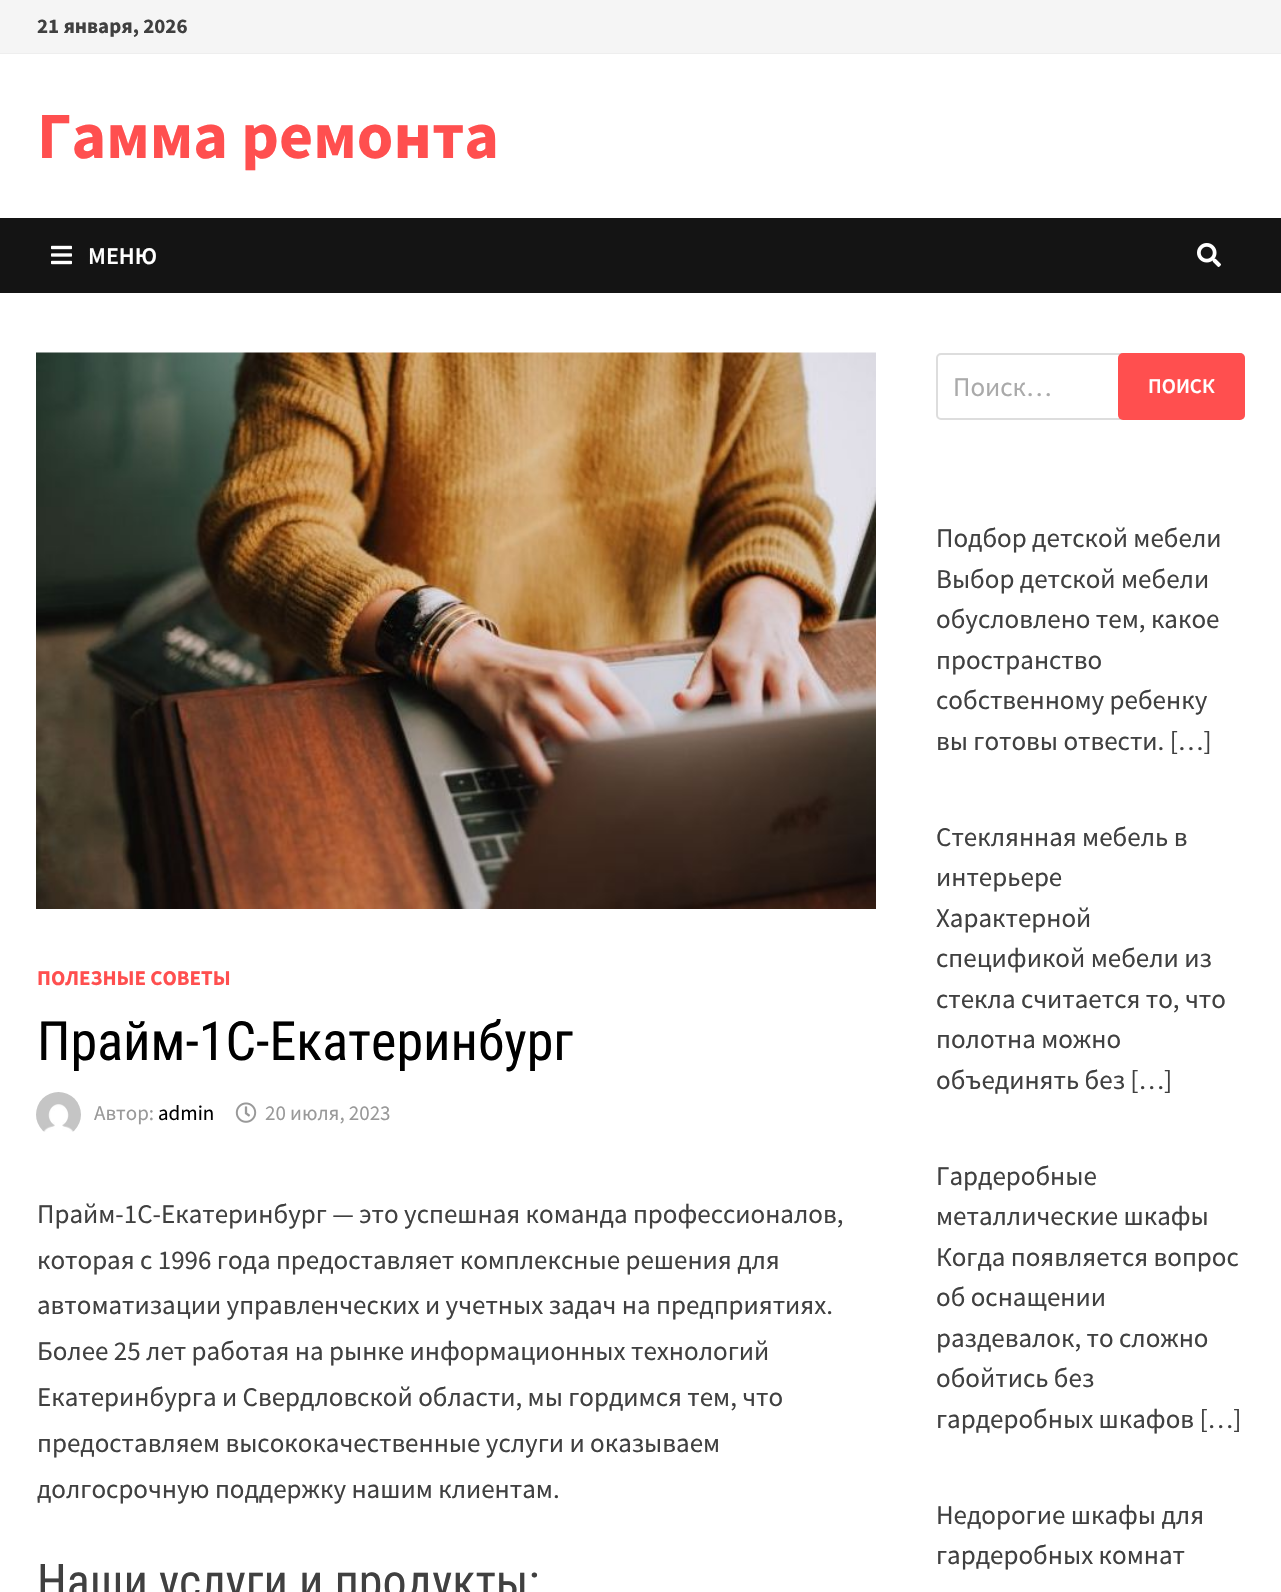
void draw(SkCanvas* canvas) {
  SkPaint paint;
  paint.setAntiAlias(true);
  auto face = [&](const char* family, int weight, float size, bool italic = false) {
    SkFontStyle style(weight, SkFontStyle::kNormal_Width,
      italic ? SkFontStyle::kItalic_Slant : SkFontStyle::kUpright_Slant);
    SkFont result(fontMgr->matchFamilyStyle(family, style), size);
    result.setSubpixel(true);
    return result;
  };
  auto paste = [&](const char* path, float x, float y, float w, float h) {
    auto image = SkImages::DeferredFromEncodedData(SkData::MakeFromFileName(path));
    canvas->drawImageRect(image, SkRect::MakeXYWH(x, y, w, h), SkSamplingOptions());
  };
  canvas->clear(0xffffffff);
  {
    const struct { float x, y, w, h; SkColor color; } items[] = {
      {0, 0, 1281, 53, 0xfff5f5f5},
      {0, 53, 1281, 1, 0xffeeeeee},
      {0, 218, 1281, 75, 0xff141414},
    };
    for (auto [x, y, w, h, color] : items) {
      paint.setColor(color);
      canvas->drawRect(SkRect::MakeXYWH(x, y, w, h), paint);
    }
  }
  paste("img/1.png", 51, 245, 21, 20);
  paste("img/2.png", 1197, 243, 24, 24);
  paste("img/3.png", 36, 352, 840, 557);
  paste("img/4.png", 36, 1092, 45, 40);
  paste("img/5.png", 235, 1102, 22, 21);
  paint.setStroke(true);
  paint.setStrokeWidth(2);
  paint.setColor(0xffdddddd);
  canvas->drawRoundRect(SkRect::MakeXYWH(937, 354, 307, 65), 4, 4, paint);
  paint.setStroke(false);
  paint.setColor(0xffff4f4f);
  canvas->drawRoundRect(SkRect::MakeXYWH(1118, 353, 127, 67), 5, 5, paint);
  auto f0 = face("Source Sans Pro", 700, 21);
  paint.setColor(0xff404040);
  canvas->drawString("21 января, 2026", 37, 33, f0, paint);
  auto f1 = face("Source Sans Pro", 700, 66);
  paint.setColor(0xffff4f4f);
  canvas->drawString("Гамма ремонта", 37, 158, f1, paint);
  auto f2 = face("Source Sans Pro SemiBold", 600, 24);
  paint.setColor(0xffffffff);
  canvas->drawString("МЕНЮ", 88, 264, f2, paint);
  paint.setColor(0xffff4f4f);
  canvas->drawString("ПОЛЕЗНЫЕ СОВЕТЫ", 37, 985, f0, paint);
  auto f3 = face("Roboto Condensed", 400, 54);
  paint.setColor(0xff000000);
  canvas->drawString("Прайм-1С-Екатеринбург", 37, 1060, f3, paint);
  auto f4 = face("Source Sans Pro", 400, 21);
  paint.setColor(0xff999999);
  canvas->drawString("Автор:", 94, 1120, f4, paint);
  paint.setColor(0xff000000);
  canvas->drawString("admin", 158, 1120, f4, paint);
  paint.setColor(0xff999999);
  canvas->drawString("20 июля, 2023", 265, 1120, f4, paint);
  auto f5 = face("Source Sans Pro", 400, 27);
  paint.setColor(0xff404040);
  {
    const struct { const char* s; float x, y; } items[] = {
      {"Прайм-1С-Екатеринбург — это успешная команда профессионалов,", 37, 1223},
      {"которая с 1996 года предоставляет комплексные решения для", 37, 1269},
      {"автоматизации управленческих и учетных задач на предприятиях.", 37, 1314},
      {"Более 25 лет работая на рынке информационных технологий", 37, 1360},
      {"Екатеринбурга и Свердловской области, мы гордимся тем, что", 37, 1406},
      {"предоставляем высококачественные услуги и оказываем", 37, 1452},
      {"долгосрочную поддержку нашим клиентам.", 37, 1498},
    };
    for (auto [s, x, y] : items) {
      canvas->drawString(s, x, y, f5, paint);
    }
  }
  auto f6 = face("Roboto Condensed", 400, 48);
  canvas->drawString("Наши услуги и продукты:", 37, 1598, f6, paint);
  paint.setColor(0xffaaaaaa);
  canvas->drawString("Поиск…", 953, 396, f5, paint);
  auto f7 = face("Source Sans Pro SemiBold", 600, 21);
  paint.setColor(0xffffffff);
  canvas->drawString("ПОИСК", 1148, 393, f7, paint);
  paint.setColor(0xff404040);
  {
    const struct { const char* s; float x, y; } items[] = {
      {"Подбор детской мебели", 936, 547},
      {"Выбор детской мебели", 936, 588},
      {"обусловлено тем, какое", 936, 628},
      {"пространство", 936, 669},
      {"собственному ребенку", 936, 709},
      {"вы готовы отвести. […]", 936, 750},
      {"Стеклянная мебель в", 936, 846},
      {"интерьере", 936, 886},
      {"Характерной", 936, 927},
      {"спецификой мебели из", 936, 967},
      {"стекла считается то, что", 936, 1008},
      {"полотна можно", 936, 1048},
      {"объединять без […]", 936, 1089},
      {"Гардеробные", 936, 1185},
      {"металлические шкафы", 936, 1225},
      {"Когда появляется вопрос", 936, 1266},
      {"об оснащении", 936, 1306},
      {"раздевалок, то сложно", 936, 1347},
      {"обойтись без", 936, 1387},
      {"гардеробных шкафов […]", 936, 1428},
      {"Недорогие шкафы для", 936, 1524},
      {"гардеробных комнат", 936, 1564},
    };
    for (auto [s, x, y] : items) {
      canvas->drawString(s, x, y, f5, paint);
    }
  }
}
